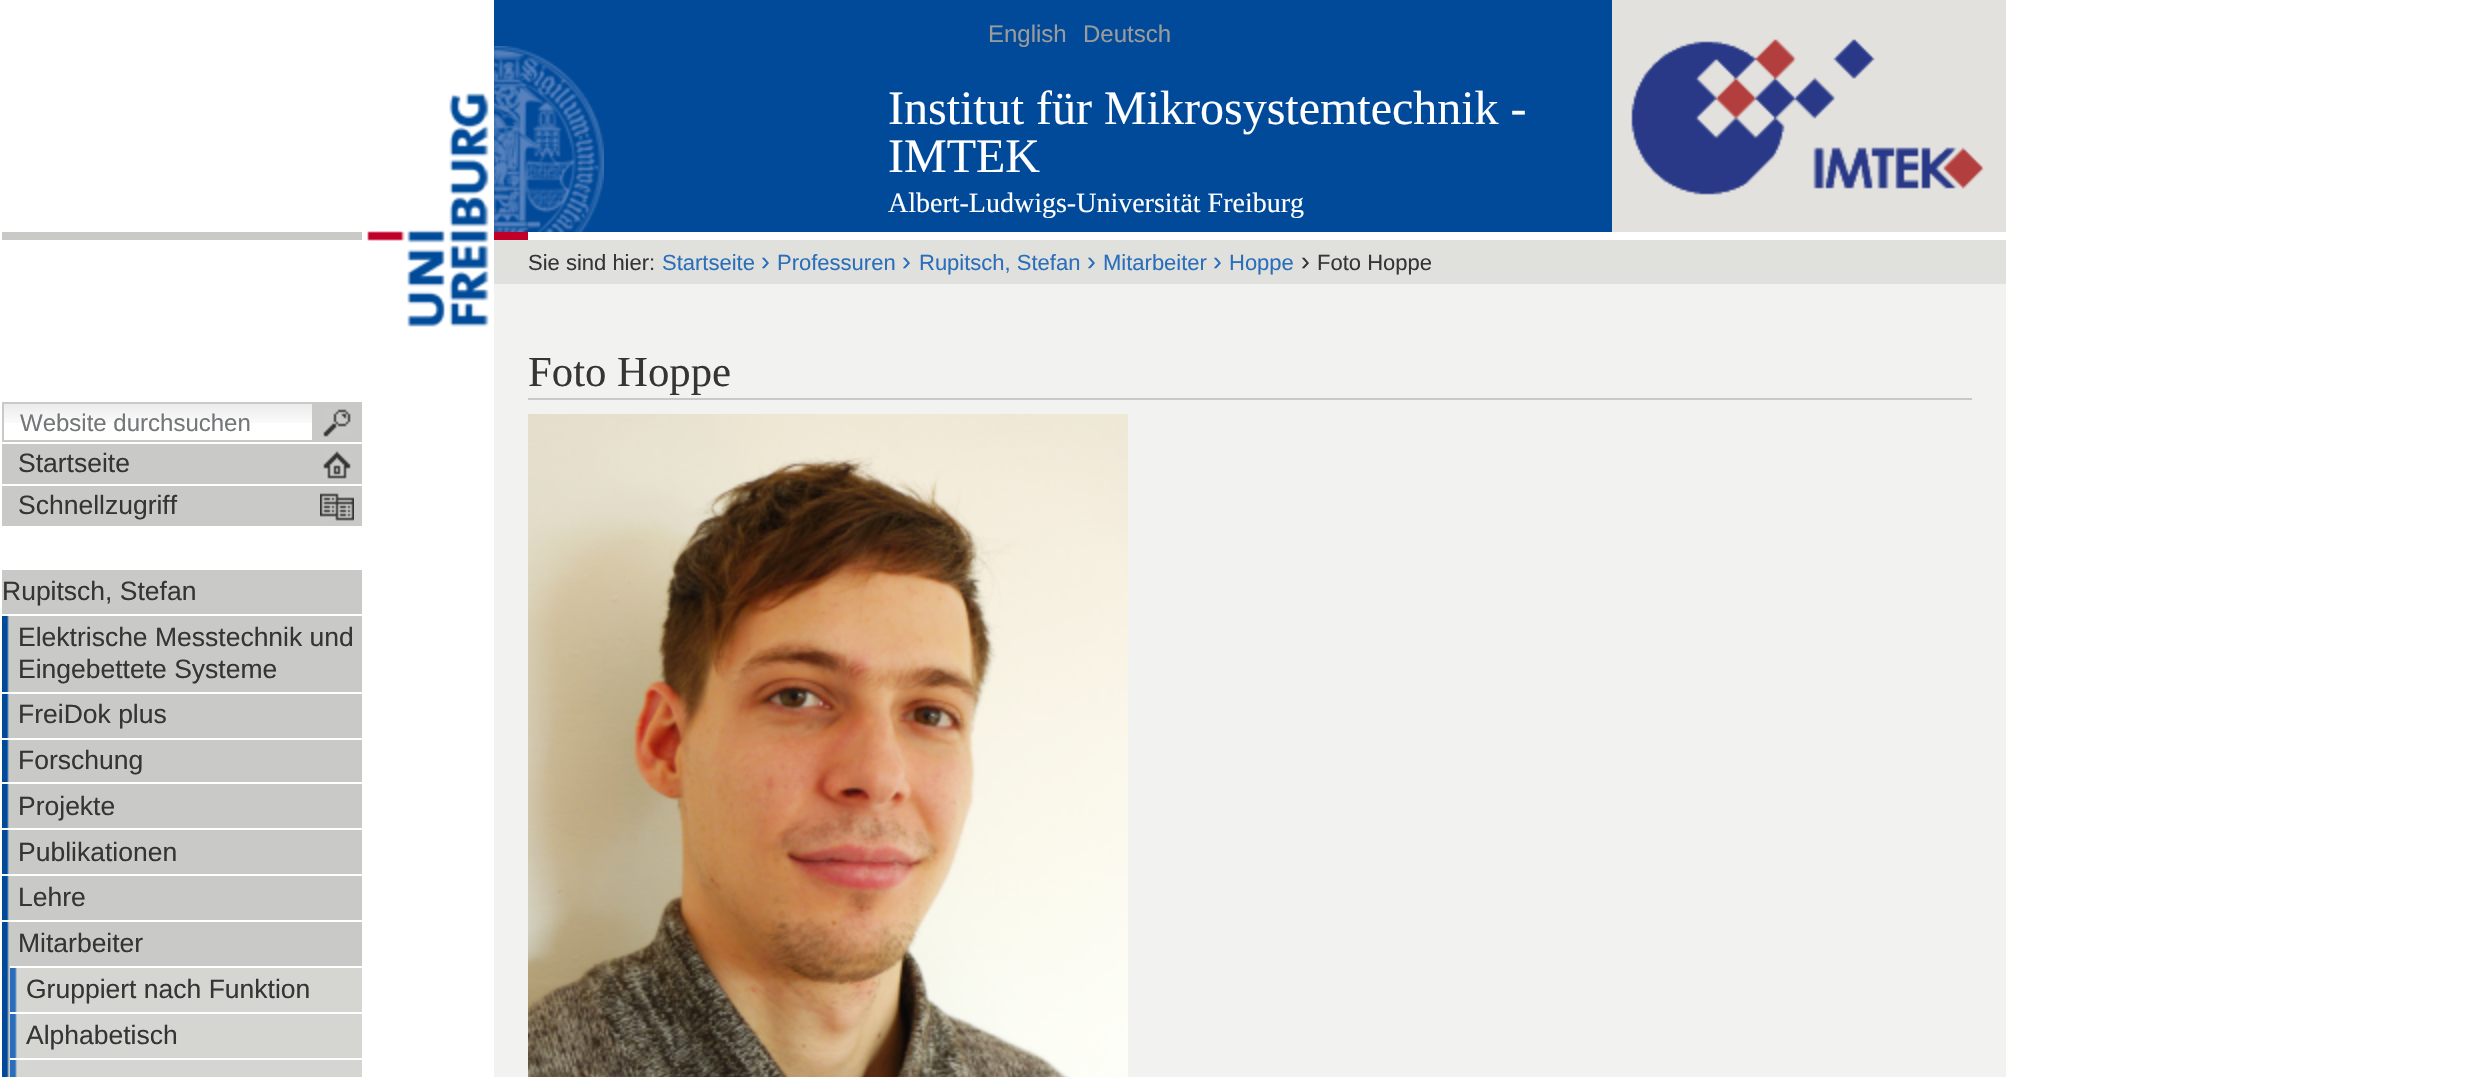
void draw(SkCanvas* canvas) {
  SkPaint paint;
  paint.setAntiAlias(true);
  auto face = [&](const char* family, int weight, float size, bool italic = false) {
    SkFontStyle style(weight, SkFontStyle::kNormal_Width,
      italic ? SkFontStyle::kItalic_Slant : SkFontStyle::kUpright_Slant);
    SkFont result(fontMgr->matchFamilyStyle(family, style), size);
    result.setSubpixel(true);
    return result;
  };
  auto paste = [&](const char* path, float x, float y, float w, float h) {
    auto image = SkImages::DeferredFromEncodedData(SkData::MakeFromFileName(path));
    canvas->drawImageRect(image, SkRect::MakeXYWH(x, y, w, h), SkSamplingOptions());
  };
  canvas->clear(0xffffffff);
  paste("img/1.png", 367, 93, 122, 234);
  paint.setColor(0xfff2f3f1);
  canvas->drawRect(SkRect::MakeXYWH(494, 284, 1512, 793), paint);
  paint.setColor(0xff004a99);
  canvas->drawRect(SkRect::MakeXYWH(494, 0, 1118, 232), paint);
  paste("img/2.png", 494, 46, 110, 186);
  paint.setColor(0xffe2e1dd);
  canvas->drawRect(SkRect::MakeXYWH(1612, 0, 394, 232), paint);
  paste("img/3.png", 1631, 39, 354, 156);
  paste("img/4.png", 494, 232, 34, 8);
  paint.setColor(0xffe0e1dd);
  canvas->drawRect(SkRect::MakeXYWH(494, 240, 1512, 44), paint);
  paint.setColor(0xffc9cac8);
  canvas->drawRect(SkRect::MakeXYWH(528, 398, 1444, 2), paint);
  paste("img/5.png", 528, 414, 600, 663);
  canvas->drawRect(SkRect::MakeXYWH(2, 232, 360, 8), paint);
  paste("img/6.png", 4, 404, 308, 19);
  paint.setStroke(true);
  paint.setStrokeWidth(2);
  canvas->drawRect(SkRect::MakeXYWH(3, 403, 310, 38), paint);
  paint.setStroke(false);
  canvas->drawRect(SkRect::MakeXYWH(314, 402, 48, 40), paint);
  paste("img/7.png", 323, 409, 28, 28);
  canvas->drawRect(SkRect::MakeXYWH(2, 444, 360, 40), paint);
  paste("img/8.png", 323, 451, 28, 28);
  canvas->drawRect(SkRect::MakeXYWH(2, 486, 360, 40), paint);
  paste("img/9.png", 320, 493, 34, 28);
  canvas->drawRect(SkRect::MakeXYWH(2, 570, 360, 44), paint);
  canvas->drawRect(SkRect::MakeXYWH(9, 616, 353, 76), paint);
  paste("img/10.png", 2, 616, 7, 76);
  canvas->drawRect(SkRect::MakeXYWH(9, 694, 353, 44), paint);
  paste("img/11.png", 2, 694, 7, 44);
  canvas->drawRect(SkRect::MakeXYWH(9, 740, 353, 42), paint);
  paste("img/12.png", 2, 740, 7, 42);
  canvas->drawRect(SkRect::MakeXYWH(9, 784, 353, 44), paint);
  paste("img/11.png", 2, 784, 7, 44);
  canvas->drawRect(SkRect::MakeXYWH(9, 830, 353, 44), paint);
  paste("img/11.png", 2, 830, 7, 44);
  canvas->drawRect(SkRect::MakeXYWH(9, 876, 353, 44), paint);
  paste("img/11.png", 2, 876, 7, 44);
  canvas->drawRect(SkRect::MakeXYWH(9, 922, 353, 155), paint);
  paste("img/13.png", 2, 922, 7, 155);
  paint.setColor(0xffffffff);
  canvas->drawRect(SkRect::MakeXYWH(10, 966, 352, 2), paint);
  paste("img/14.png", 10, 968, 8, 44);
  canvas->drawRect(SkRect::MakeXYWH(10, 1012, 352, 2), paint);
  paint.setColor(0xffd5d6d2);
  canvas->drawRect(SkRect::MakeXYWH(18, 968, 344, 44), paint);
  paste("img/14.png", 10, 1014, 8, 44);
  paint.setColor(0xffffffff);
  canvas->drawRect(SkRect::MakeXYWH(10, 1058, 352, 2), paint);
  paint.setColor(0xffd5d6d2);
  canvas->drawRect(SkRect::MakeXYWH(18, 1014, 344, 44), paint);
  paste("img/15.png", 10, 1060, 8, 17);
  canvas->drawRect(SkRect::MakeXYWH(18, 1060, 344, 17), paint);
  auto f0 = face("Liberation Sans", 400, 24);
  paint.setColor(0xff9a9b9c);
  canvas->drawString("English", 988, 42, f0, paint);
  canvas->drawString("Deutsch", 1083, 42, f0, paint);
  auto f1 = face("Liberation Serif", 400, 48);
  paint.setColor(0xffffffff);
  canvas->drawString("Institut für Mikrosystemtechnik -", 888, 124, f1, paint);
  canvas->drawString("IMTEK", 888, 172, f1, paint);
  auto f2 = face("Liberation Serif", 400, 28);
  canvas->drawString("Albert-Ludwigs-Universität Freiburg", 888, 212, f2, paint);
  auto f3 = face("Liberation Sans", 400, 22);
  paint.setColor(0xff363534);
  canvas->drawString("Sie sind hier:", 528, 270, f3, paint);
  paint.setColor(0xff2a6ebb);
  canvas->drawString("Startseite", 662, 270, f3, paint);
  auto f4 = face("Liberation Sans", 400, 26.5f);
  canvas->drawString("›", 761, 270, f4, paint);
  canvas->drawString("Professuren", 777, 270, f3, paint);
  canvas->drawString("›", 902, 270, f4, paint);
  canvas->drawString("Rupitsch, Stefan", 919, 270, f3, paint);
  canvas->drawString("›", 1087, 270, f4, paint);
  canvas->drawString("Mitarbeiter", 1103, 270, f3, paint);
  canvas->drawString("›", 1213, 270, f4, paint);
  canvas->drawString("Hoppe", 1229, 270, f3, paint);
  paint.setColor(0xff363534);
  canvas->drawString("›", 1301, 270, f4, paint);
  canvas->drawString("Foto Hoppe", 1317, 270, f3, paint);
  auto f5 = face("Liberation Serif", 400, 42.75f);
  canvas->drawString("Foto Hoppe", 528, 386, f5, paint);
  paint.setColor(0xff747678);
  canvas->drawString("Website durchsuchen", 20, 431, f0, paint);
  paint.setColor(0xff363534);
  {
    const struct { const char* s; float x, y; } items[] = {
      {"Startseite", 18, 472},
      {"Schnellzugriff", 18, 514},
      {"Rupitsch, Stefan", 2, 600},
      {"Elektrische Messtechnik und", 18, 646},
      {"Eingebettete Systeme", 18, 678},
      {"FreiDok plus", 18, 723},
      {"Forschung", 18, 769},
      {"Projekte", 18, 815},
      {"Publikationen", 18, 861},
      {"Lehre", 18, 906},
      {"Mitarbeiter", 18, 952},
      {"Gruppiert nach Funktion", 26, 998},
      {"Alphabetisch", 26, 1044},
    };
    for (auto [s, x, y] : items) {
      canvas->drawString(s, x, y, f4, paint);
    }
  }
}
